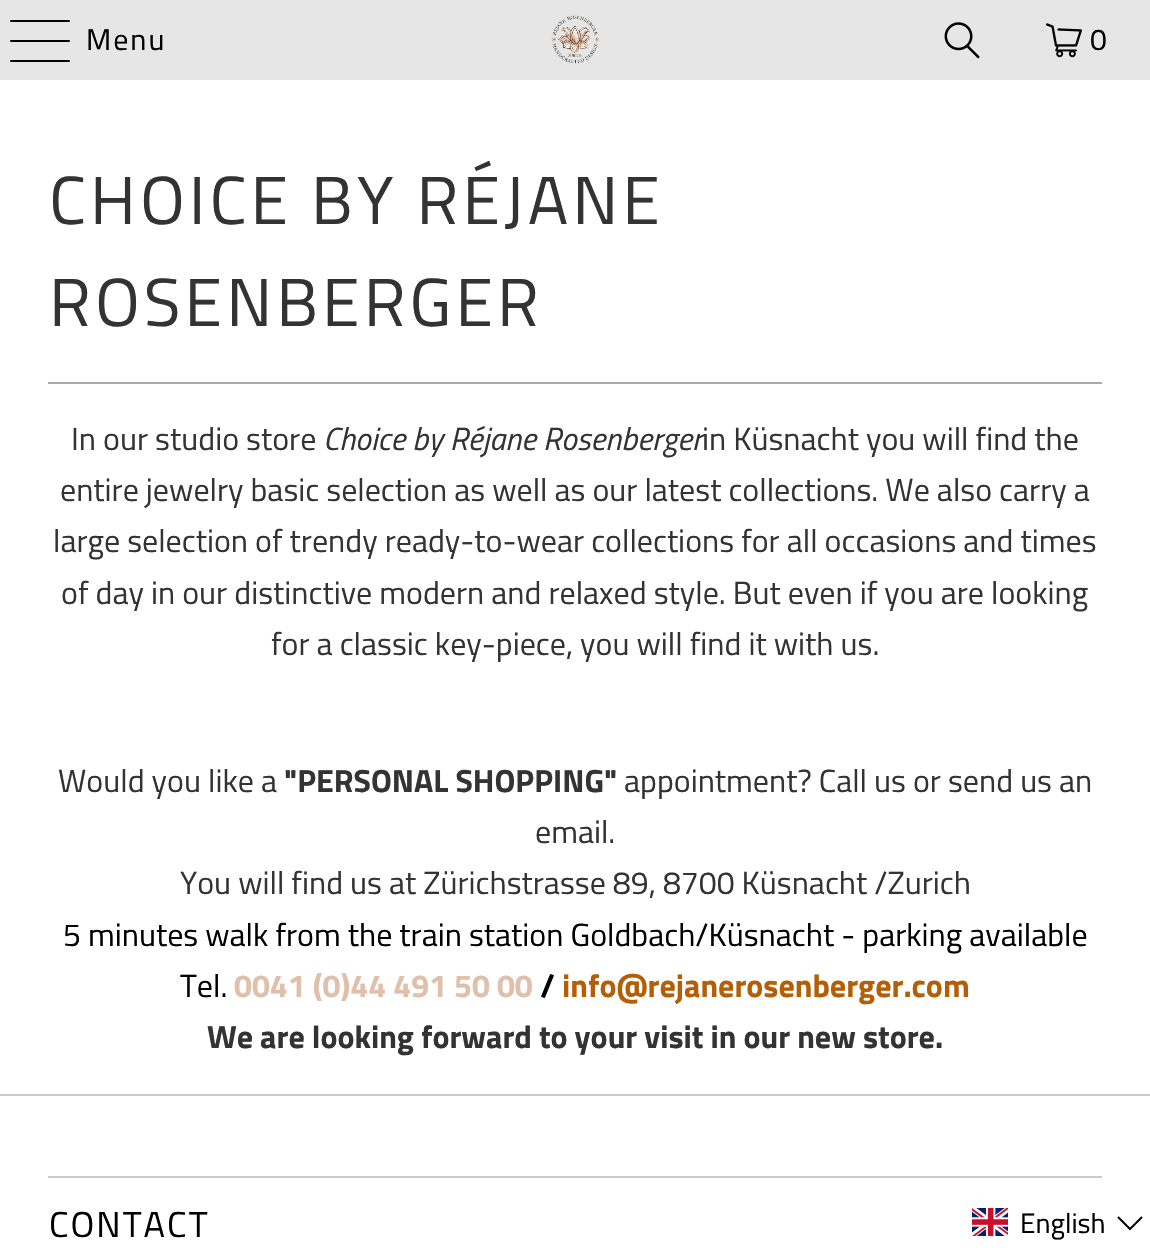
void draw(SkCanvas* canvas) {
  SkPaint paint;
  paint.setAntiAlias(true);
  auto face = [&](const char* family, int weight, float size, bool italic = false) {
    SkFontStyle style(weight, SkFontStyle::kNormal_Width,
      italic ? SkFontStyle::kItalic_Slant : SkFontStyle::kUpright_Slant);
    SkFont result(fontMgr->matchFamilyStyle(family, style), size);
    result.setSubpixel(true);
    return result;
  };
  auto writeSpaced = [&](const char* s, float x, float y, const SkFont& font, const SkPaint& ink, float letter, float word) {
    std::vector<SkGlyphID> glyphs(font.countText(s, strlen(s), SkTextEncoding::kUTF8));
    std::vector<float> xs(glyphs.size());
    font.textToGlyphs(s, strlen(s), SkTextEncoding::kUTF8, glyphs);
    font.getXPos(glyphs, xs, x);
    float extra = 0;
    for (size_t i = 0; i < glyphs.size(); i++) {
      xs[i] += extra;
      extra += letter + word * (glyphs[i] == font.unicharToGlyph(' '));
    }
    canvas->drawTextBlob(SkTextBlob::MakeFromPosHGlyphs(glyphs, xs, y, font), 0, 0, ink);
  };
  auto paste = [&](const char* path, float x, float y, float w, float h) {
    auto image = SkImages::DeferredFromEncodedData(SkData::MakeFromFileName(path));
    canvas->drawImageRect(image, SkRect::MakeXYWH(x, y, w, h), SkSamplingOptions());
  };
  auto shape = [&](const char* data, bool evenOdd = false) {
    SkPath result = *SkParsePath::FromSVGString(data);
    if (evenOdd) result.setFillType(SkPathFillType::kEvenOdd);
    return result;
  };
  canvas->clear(0xffffffff);
  paint.setColor(0xffe6e6e6);
  canvas->drawRect(SkRect::MakeXYWH(0, 0, 1150, 80), paint);
  paint.setColor(0xff000000);
  canvas->drawRoundRect(SkRect::MakeXYWH(10, 20, 60, 2), 1, 1, paint);
  canvas->drawRoundRect(SkRect::MakeXYWH(10, 40, 60, 2), 1, 1, paint);
  canvas->drawRoundRect(SkRect::MakeXYWH(10, 60, 60, 2), 1, 1, paint);
  paste("img/1.png", 551, 15, 48, 49);
  paste("img/2.png", 944, 22, 36, 37);
  paste("img/3.png", 1046, 23, 36, 35);
  {
    const struct { float x, y, w, h; SkColor color; } items[] = {
      {48, 382, 1054, 2, 0xffaaaaaa},
      {0, 1094, 1150, 2, 0xffcccccc},
      {48, 1176, 1054, 2, 0xffcccccc},
    };
    for (auto [x, y, w, h, color] : items) {
      paint.setColor(color);
      canvas->drawRect(SkRect::MakeXYWH(x, y, w, h), paint);
    }
  }
  paste("img/4.png", 972, 1208, 36, 28);
  paint.setStroke(true);
  paint.setStrokeWidth(2);
  paint.setColor(0xff000000);
  canvas->drawPath(shape("M1118 1217L1130 1229L1142 1217"), paint);
  auto f0 = face("Titillium Web", 400, 30);
  paint.setStroke(false);
  writeSpaced("Menu", 86, 50, f0, paint, 2, 0);
  writeSpaced("0", 1090, 50, f0, paint, 2, 0);
  auto f1 = face("Titillium Web", 400, 68);
  paint.setColor(0xff333333);
  writeSpaced("CHOICE BY RÉJANE", 49, 224, f1, paint, 4, 0);
  writeSpaced("ROSENBERGER", 49, 326, f1, paint, 4, 0);
  auto f2 = face("Titillium Web", 400, 32);
  canvas->drawString("In our studio store", 71, 450, f2, paint);
  auto f3 = face("Titillium Web", 400, 32, true);
  canvas->drawString("Choice by Réjane Rosenberger", 323, 450, f3, paint);
  {
    const struct { const char* s; float x, y; } items[] = {
      {"in Küsnacht you will find the", 702, 450},
      {"entire jewelry basic selection as well as our latest collections. We also carry a", 60, 501},
      {"large selection of trendy ready-to-wear collections for all occasions and times", 53, 552},
      {"of day in our distinctive modern and relaxed style. But even if you are looking", 61, 604},
      {"for a classic key-piece, you will find it with us.", 271, 655},
      {"Would you like a", 58, 792},
    };
    for (auto [s, x, y] : items) {
      canvas->drawString(s, x, y, f2, paint);
    }
  }
  auto f4 = face("Titillium Web", 700, 32);
  canvas->drawString("\"PERSONAL SHOPPING\"", 284, 792, f4, paint);
  {
    const struct { const char* s; float x, y; } items[] = {
      {"appointment? Call us or send us an", 624, 792},
      {"email.", 535, 843},
      {"You will find us at Zürichstrasse 89, 8700 Küsnacht /Zurich", 180, 894},
    };
    for (auto [s, x, y] : items) {
      canvas->drawString(s, x, y, f2, paint);
    }
  }
  paint.setColor(0xff000000);
  canvas->drawString("5 minutes walk from the train station Goldbach/Küsnacht - parking available", 63, 946, f2, paint);
  canvas->drawString("Tel.", 180, 997, f2, paint);
  paint.setColor(0xffe0c0ab);
  canvas->drawString("0041 (0)44 491 50 00", 234, 997, f4, paint);
  paint.setColor(0xff000000);
  canvas->drawString("/", 540, 997, f4, paint);
  paint.setColor(0xffb45f06);
  canvas->drawString("info@rejanerosenberger.com", 562, 997, f4, paint);
  paint.setColor(0xff333333);
  canvas->drawString("We are looking forward to your visit in our new store.", 207, 1048, f4, paint);
  auto f5 = face("Titillium Web", 400, 36);
  paint.setColor(0xff000000);
  writeSpaced("CONTACT", 49, 1237, f5, paint, 2, 0);
  auto f6 = face("Titillium Web", 400, 28);
  canvas->drawString("English", 1020, 1233, f6, paint);
}
